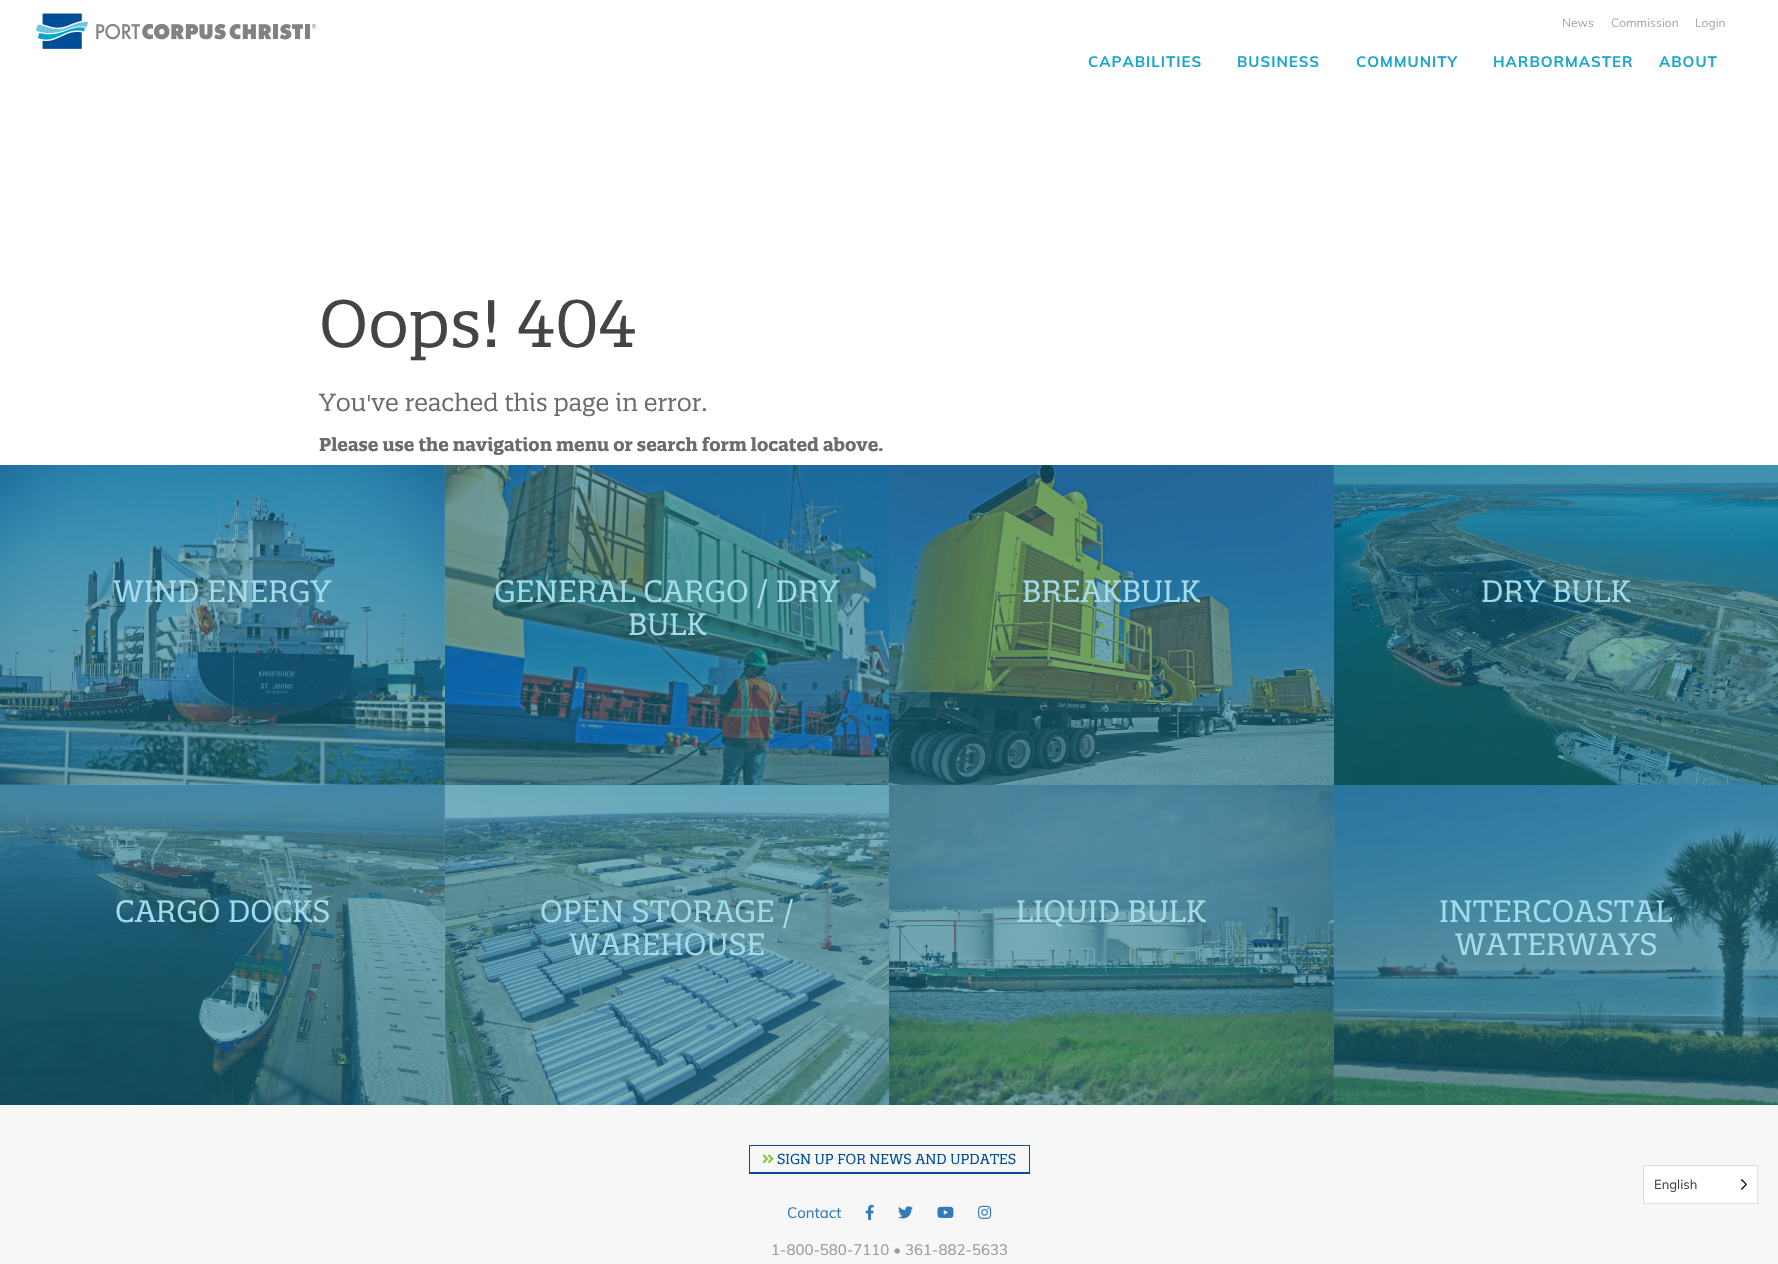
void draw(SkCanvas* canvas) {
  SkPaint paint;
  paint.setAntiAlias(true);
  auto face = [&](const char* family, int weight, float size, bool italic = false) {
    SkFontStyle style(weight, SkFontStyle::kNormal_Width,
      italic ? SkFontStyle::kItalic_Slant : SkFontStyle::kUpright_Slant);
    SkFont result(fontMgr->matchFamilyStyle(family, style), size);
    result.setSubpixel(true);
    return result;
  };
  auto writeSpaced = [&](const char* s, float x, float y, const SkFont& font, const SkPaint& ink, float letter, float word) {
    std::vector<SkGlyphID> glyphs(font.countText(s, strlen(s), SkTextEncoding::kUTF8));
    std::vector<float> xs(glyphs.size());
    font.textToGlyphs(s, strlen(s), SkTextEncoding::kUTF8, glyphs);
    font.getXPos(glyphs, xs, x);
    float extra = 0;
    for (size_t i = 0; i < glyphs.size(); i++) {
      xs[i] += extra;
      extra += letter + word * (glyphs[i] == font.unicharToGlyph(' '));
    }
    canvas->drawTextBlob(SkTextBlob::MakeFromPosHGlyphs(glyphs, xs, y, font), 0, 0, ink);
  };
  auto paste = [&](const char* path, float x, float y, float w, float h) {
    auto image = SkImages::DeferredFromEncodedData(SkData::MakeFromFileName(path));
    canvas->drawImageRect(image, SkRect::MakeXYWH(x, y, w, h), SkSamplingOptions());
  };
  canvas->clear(0xffffffff);
  paint.setColor(0xff76adbc);
  canvas->drawRect(SkRect::MakeXYWH(0, 465, 445, 320), paint);
  paste("img/1.png", 35, 13, 282, 36);
  paste("img/2.png", 0, 465, 445, 320);
  paste("img/3.png", 445, 465, 444, 320);
  paste("img/4.png", 889, 465, 445, 320);
  paint.setColor(0x4d000000);
  canvas->drawRect(SkRect::MakeXYWH(889, 465, 445, 320), paint);
  paste("img/5.png", 1334, 465, 444, 320);
  paste("img/6.png", 0, 785, 445, 320);
  paste("img/7.png", 445, 785, 444, 320);
  paste("img/8.png", 889, 785, 445, 320);
  canvas->drawRect(SkRect::MakeXYWH(889, 785, 445, 320), paint);
  paste("img/9.png", 1334, 785, 444, 320);
  {
    const struct { float x, y, w, h; SkColor color; } items[] = {
      {0, 1105, 1778, 159, 0xfff7f7f7},
      {749, 1145, 281, 1, 0xff014e98},
      {1029, 1145, 1, 29, 0xff014e98},
      {749, 1172, 281, 2, 0xff014e98},
      {749, 1145, 1, 29, 0xff014e98},
    };
    for (auto [x, y, w, h, color] : items) {
      paint.setColor(color);
      canvas->drawRect(SkRect::MakeXYWH(x, y, w, h), paint);
    }
  }
  paste("img/10.png", 762, 1154, 12, 10);
  paste("img/11.png", 865, 1204, 9, 16);
  paste("img/12.png", 898, 1206, 15, 13);
  paste("img/13.png", 937, 1206, 17, 12);
  paste("img/14.png", 978, 1205, 14, 14);
  paint.setColor(0xffffffff);
  canvas->drawRect(SkRect::MakeXYWH(1643.5f, 1165.5f, 114, 38), paint);
  paint.setStroke(true);
  paint.setStrokeWidth(1);
  paint.setColor(0xffe0e0e0);
  canvas->drawRect(SkRect::MakeXYWH(1643.5f, 1165.5f, 114, 38), paint);
  paste("img/15.png", 1741, 1179, 6, 11);
  auto f0 = face("Muli", 400, 12);
  paint.setStroke(false);
  paint.setColor(0xffaaaaaa);
  {
    const struct { const char* s; float x, y; } items[] = {
      {"News", 1562, 27},
      {"Commission", 1611, 27},
      {"Login", 1695, 27},
    };
    for (auto [s, x, y] : items) {
      canvas->drawString(s, x, y, f0, paint);
    }
  }
  auto f1 = face("Muli", 700, 15);
  paint.setColor(0xff1ba5c9);
  {
    const struct { const char* s; float x, y; } items[] = {
      {"CAPABILITIES", 1088, 67},
      {"BUSINESS", 1237, 67},
      {"COMMUNITY", 1356, 67},
      {"HARBORMASTER", 1493, 67},
      {"ABOUT", 1659, 67},
    };
    for (auto [s, x, y] : items) {
      writeSpaced(s, x, y, f1, paint, 1, 0);
    }
  }
  auto f2 = face("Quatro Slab", 400, 65);
  paint.setColor(0xff444444);
  canvas->drawString("Oops! 404", 319, 347, f2, paint);
  auto f3 = face("Quatro Slab", 400, 24);
  paint.setColor(0xff6a6c6d);
  canvas->drawString("You've reached this page in error.", 319, 411, f3, paint);
  auto f4 = face("Quatro Slab", 700, 18);
  canvas->drawString("Please use the navigation menu or search form located above.", 319, 451, f4, paint);
  auto f5 = face("Quatro Slab", 400, 30);
  paint.setColor(0xffa4dbe9);
  {
    const struct { const char* s; float x, y; } items[] = {
      {"WIND ENERGY", 113, 602},
      {"GENERAL CARGO / DRY", 494, 602},
      {"BULK", 628, 635},
    };
    for (auto [s, x, y] : items) {
      canvas->drawString(s, x, y, f5, paint);
    }
  }
  paint.setColor(0xffffffff);
  canvas->drawString("BREAKBULK", 1022, 602, f5, paint);
  paint.setColor(0x661ba5c9);
  canvas->drawRect(SkRect::MakeXYWH(889, 465, 445, 320), paint);
  paint.setColor(0xffa4dbe9);
  {
    const struct { const char* s; float x, y; } items[] = {
      {"DRY BULK", 1481, 602},
      {"CARGO DOCKS", 115, 922},
      {"OPEN STORAGE /", 540, 922},
      {"WAREHOUSE", 569, 955},
    };
    for (auto [s, x, y] : items) {
      canvas->drawString(s, x, y, f5, paint);
    }
  }
  paint.setColor(0xffffffff);
  canvas->drawString("LIQUID BULK", 1016, 922, f5, paint);
  paint.setColor(0x661ba5c9);
  canvas->drawRect(SkRect::MakeXYWH(889, 785, 445, 320), paint);
  paint.setColor(0xffa4dbe9);
  canvas->drawString("INTERCOASTAL", 1439, 922, f5, paint);
  canvas->drawString("WATERWAYS", 1455, 955, f5, paint);
  auto f6 = face("Quatro Slab", 400, 14);
  paint.setColor(0xff014e98);
  canvas->drawString("SIGN UP FOR NEWS AND UPDATES", 777, 1164, f6, paint);
  auto f7 = face("Muli", 400, 15);
  paint.setColor(0xff337ab7);
  canvas->drawString("Contact", 787, 1218, f7, paint);
  paint.setColor(0xff999999);
  canvas->drawString("1-800-580-7110 • 361-882-5633", 771, 1255, f7, paint);
  auto f8 = face("Muli", 400, 13);
  paint.setColor(0xff444444);
  canvas->drawString("English", 1654, 1189, f8, paint);
}
